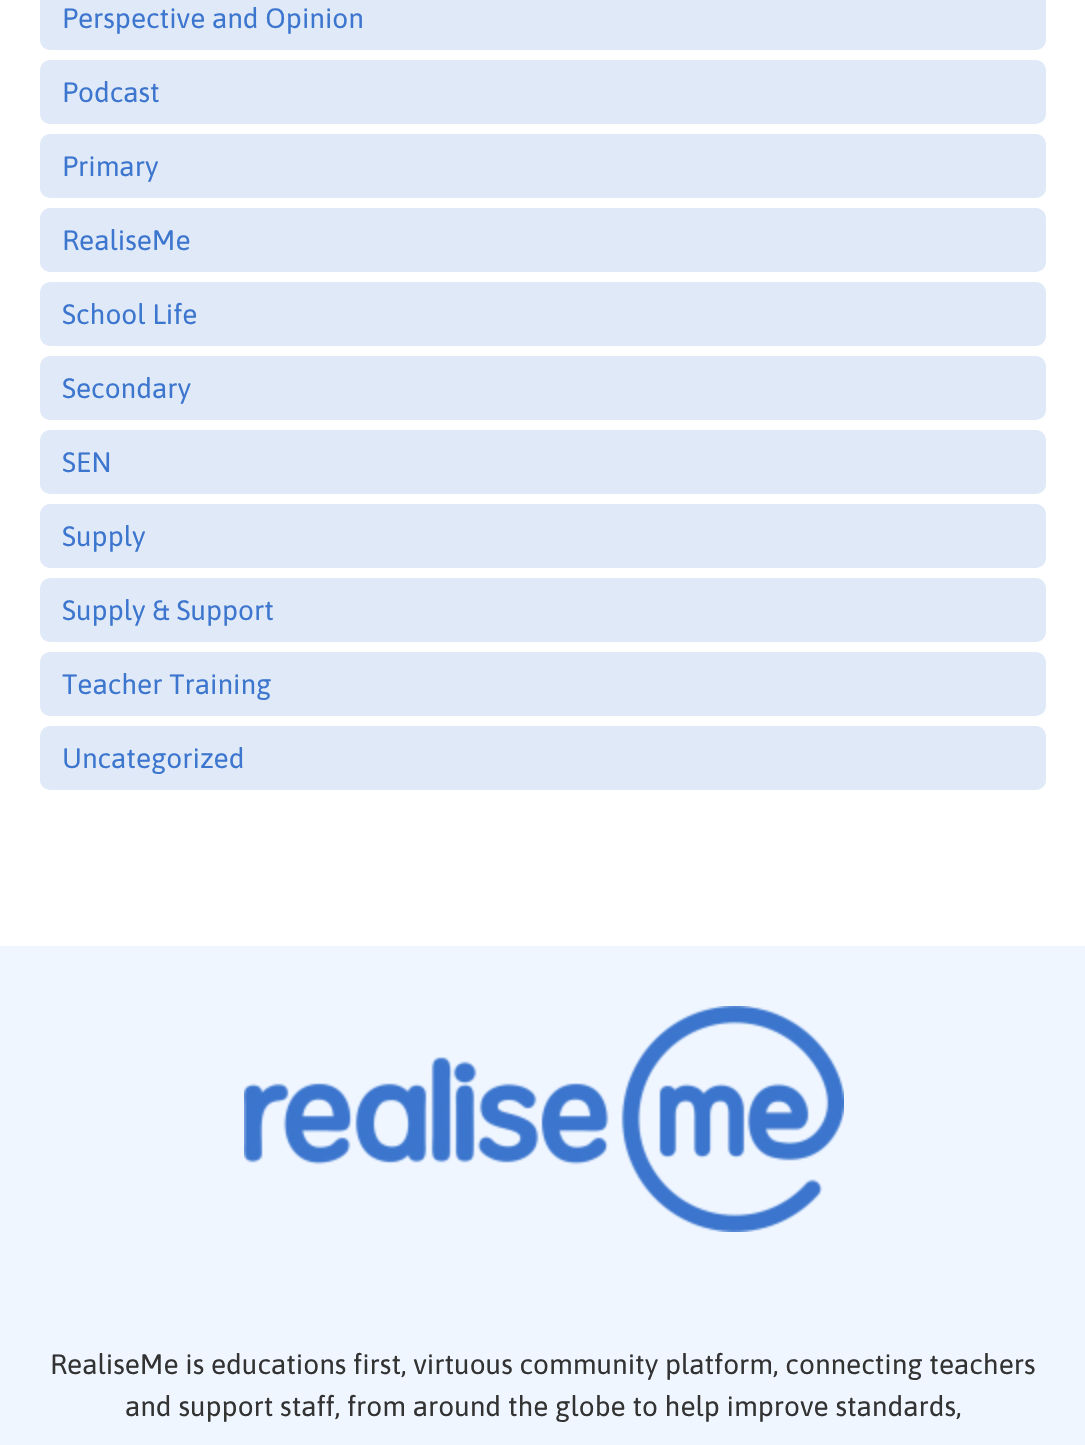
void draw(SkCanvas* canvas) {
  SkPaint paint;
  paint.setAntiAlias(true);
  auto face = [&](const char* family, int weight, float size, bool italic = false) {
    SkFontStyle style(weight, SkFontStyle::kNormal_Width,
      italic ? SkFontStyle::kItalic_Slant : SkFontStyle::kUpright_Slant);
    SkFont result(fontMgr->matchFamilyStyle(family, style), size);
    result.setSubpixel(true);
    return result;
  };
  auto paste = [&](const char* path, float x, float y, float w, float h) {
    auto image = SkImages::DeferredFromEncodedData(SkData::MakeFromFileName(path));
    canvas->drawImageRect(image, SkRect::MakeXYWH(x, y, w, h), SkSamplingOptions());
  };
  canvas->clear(0xffffffff);
  paint.setColor(0xffe0e9f7);
  canvas->drawRoundRect(SkRect::MakeXYWH(41, -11, 1004, 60), 9, 9, paint);
  paint.setStroke(true);
  paint.setStrokeWidth(2);
  canvas->drawRoundRect(SkRect::MakeXYWH(41, -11, 1004, 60), 9, 9, paint);
  paint.setStroke(false);
  canvas->drawRoundRect(SkRect::MakeXYWH(41, 61, 1004, 62), 9, 9, paint);
  paint.setStroke(true);
  canvas->drawRoundRect(SkRect::MakeXYWH(41, 61, 1004, 62), 9, 9, paint);
  paint.setStroke(false);
  canvas->drawRoundRect(SkRect::MakeXYWH(41, 135, 1004, 62), 9, 9, paint);
  paint.setStroke(true);
  canvas->drawRoundRect(SkRect::MakeXYWH(41, 135, 1004, 62), 9, 9, paint);
  paint.setStroke(false);
  canvas->drawRoundRect(SkRect::MakeXYWH(41, 209, 1004, 62), 9, 9, paint);
  paint.setStroke(true);
  canvas->drawRoundRect(SkRect::MakeXYWH(41, 209, 1004, 62), 9, 9, paint);
  paint.setStroke(false);
  canvas->drawRoundRect(SkRect::MakeXYWH(41, 283, 1004, 62), 9, 9, paint);
  paint.setStroke(true);
  canvas->drawRoundRect(SkRect::MakeXYWH(41, 283, 1004, 62), 9, 9, paint);
  paint.setStroke(false);
  canvas->drawRoundRect(SkRect::MakeXYWH(41, 357, 1004, 62), 9, 9, paint);
  paint.setStroke(true);
  canvas->drawRoundRect(SkRect::MakeXYWH(41, 357, 1004, 62), 9, 9, paint);
  paint.setStroke(false);
  canvas->drawRoundRect(SkRect::MakeXYWH(41, 431, 1004, 62), 9, 9, paint);
  paint.setStroke(true);
  canvas->drawRoundRect(SkRect::MakeXYWH(41, 431, 1004, 62), 9, 9, paint);
  paint.setStroke(false);
  canvas->drawRoundRect(SkRect::MakeXYWH(41, 505, 1004, 62), 9, 9, paint);
  paint.setStroke(true);
  canvas->drawRoundRect(SkRect::MakeXYWH(41, 505, 1004, 62), 9, 9, paint);
  paint.setStroke(false);
  canvas->drawRoundRect(SkRect::MakeXYWH(41, 579, 1004, 62), 9, 9, paint);
  paint.setStroke(true);
  canvas->drawRoundRect(SkRect::MakeXYWH(41, 579, 1004, 62), 9, 9, paint);
  paint.setStroke(false);
  canvas->drawRoundRect(SkRect::MakeXYWH(41, 653, 1004, 62), 9, 9, paint);
  paint.setStroke(true);
  canvas->drawRoundRect(SkRect::MakeXYWH(41, 653, 1004, 62), 9, 9, paint);
  paint.setStroke(false);
  canvas->drawRoundRect(SkRect::MakeXYWH(41, 727, 1004, 62), 9, 9, paint);
  paint.setStroke(true);
  canvas->drawRoundRect(SkRect::MakeXYWH(41, 727, 1004, 62), 9, 9, paint);
  paint.setStroke(false);
  paint.setColor(0xffeff6ff);
  canvas->drawRect(SkRect::MakeXYWH(0, 946, 1085, 499), paint);
  paste("img/1.png", 244, 1006, 600, 226);
  auto f0 = face("Asap", 400, 28);
  paint.setColor(0xff3c76ce);
  {
    const struct { const char* s; float x, y; } items[] = {
      {"Perspective and Opinion", 62, 28},
      {"Podcast", 62, 102},
      {"Primary", 62, 176},
      {"RealiseMe", 62, 250},
      {"School Life", 62, 324},
      {"Secondary", 62, 398},
      {"SEN", 62, 472},
      {"Supply", 62, 546},
      {"Supply & Support", 62, 620},
      {"Teacher Training", 62, 694},
      {"Uncategorized", 62, 768},
    };
    for (auto [s, x, y] : items) {
      canvas->drawString(s, x, y, f0, paint);
    }
  }
  paint.setColor(0xff333333);
  canvas->drawString("RealiseMe is educations first, virtuous community platform, connecting teachers", 50, 1374, f0, paint);
  canvas->drawString("and support staff, from around the globe to help improve standards,", 125, 1416, f0, paint);
}
